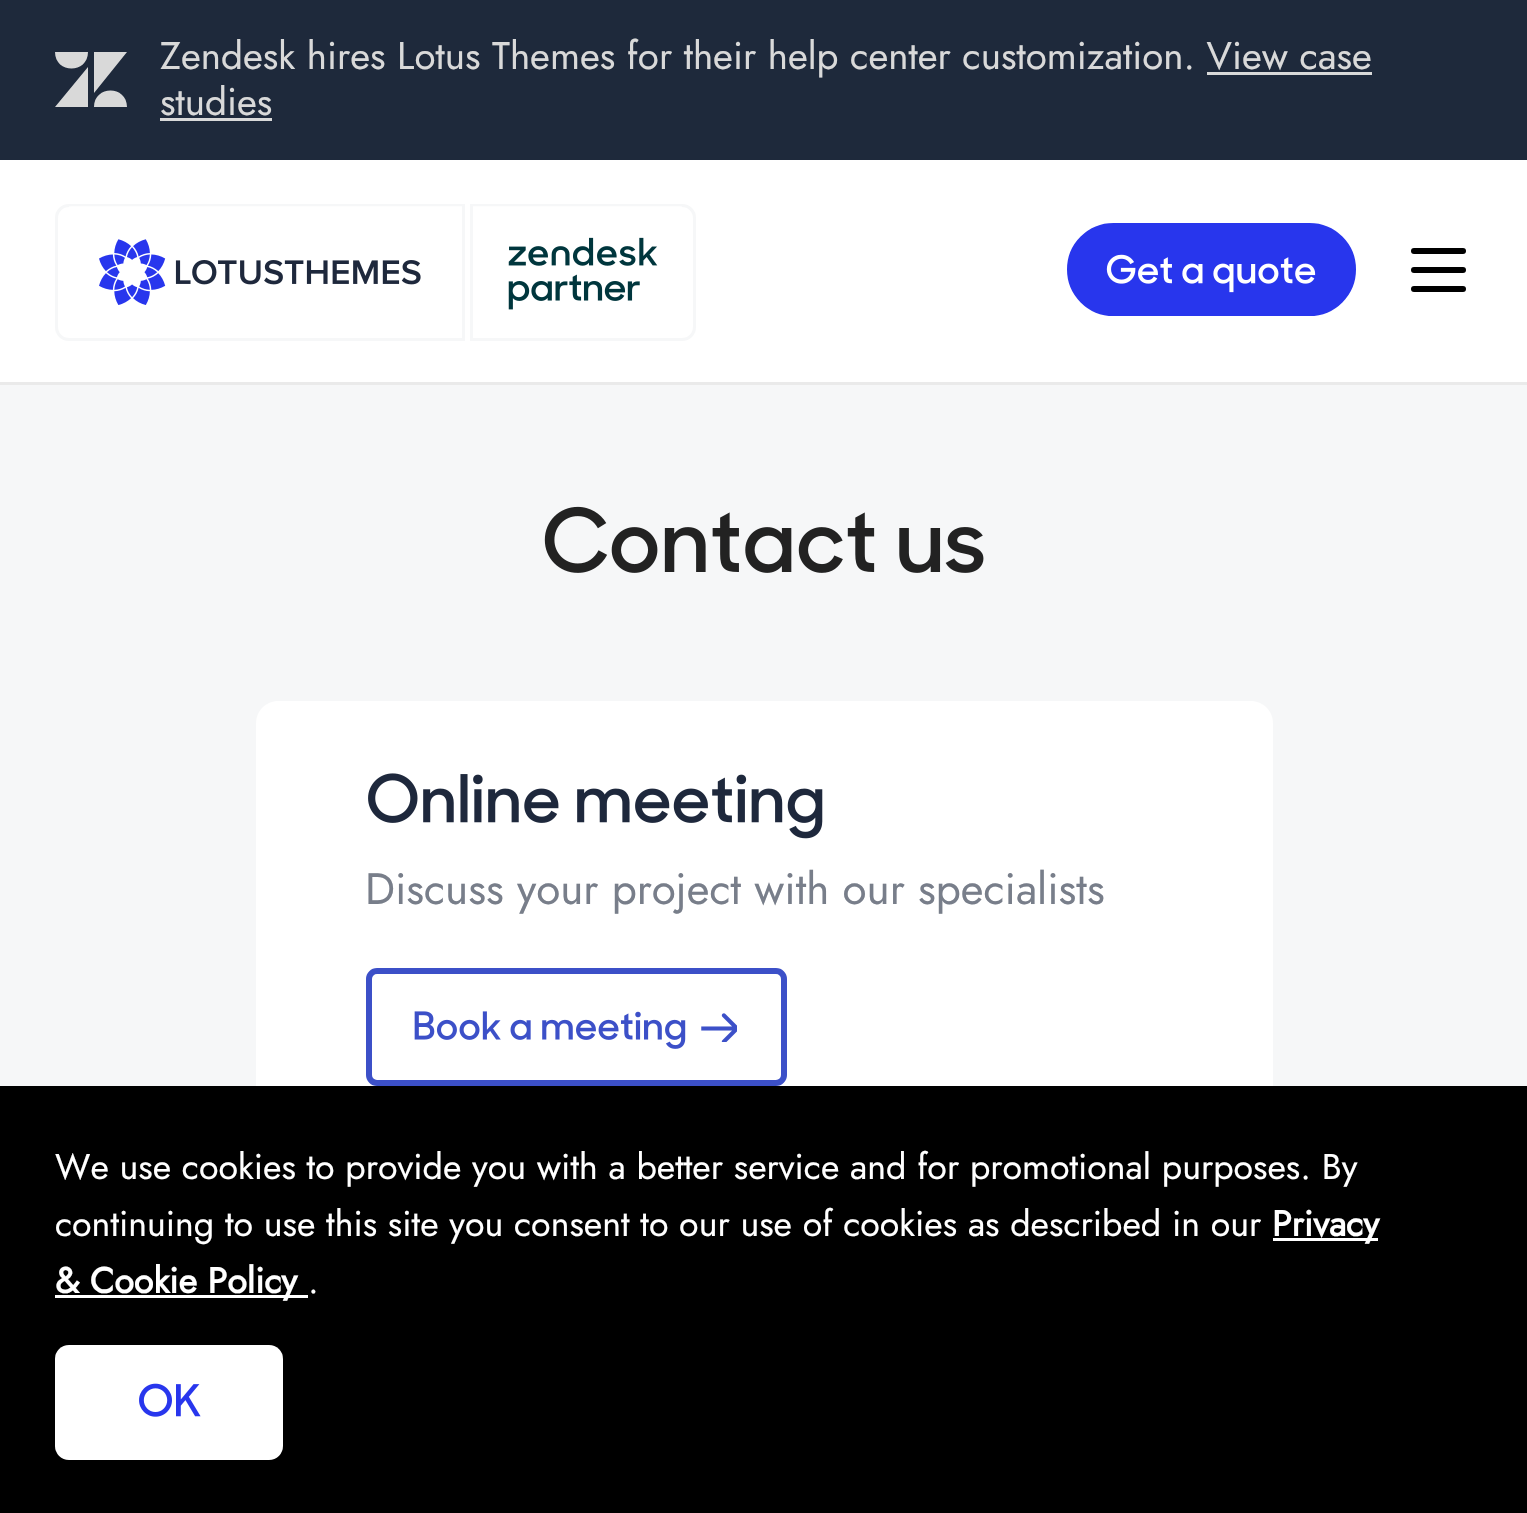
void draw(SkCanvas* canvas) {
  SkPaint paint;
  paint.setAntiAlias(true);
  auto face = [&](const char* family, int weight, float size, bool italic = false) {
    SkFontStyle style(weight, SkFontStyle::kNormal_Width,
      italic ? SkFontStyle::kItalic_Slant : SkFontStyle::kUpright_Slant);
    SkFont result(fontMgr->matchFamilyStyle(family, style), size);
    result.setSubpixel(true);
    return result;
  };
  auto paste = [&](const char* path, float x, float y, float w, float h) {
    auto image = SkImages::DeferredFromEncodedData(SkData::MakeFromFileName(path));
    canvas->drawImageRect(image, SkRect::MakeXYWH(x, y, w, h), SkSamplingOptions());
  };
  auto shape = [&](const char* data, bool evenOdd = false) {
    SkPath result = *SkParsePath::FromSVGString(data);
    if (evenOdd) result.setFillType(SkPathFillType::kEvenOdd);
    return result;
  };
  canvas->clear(0xffffffff);
  paint.setColor(0xff1e293b);
  canvas->drawRect(SkRect::MakeXYWH(0, 0, 1527, 160), paint);
  paint.setColor(0xffd9d9d9);
  canvas->drawPath(shape("M88 67V107H55ZM88 52C88 74 55 74 55 52ZM94 107C94 85 127 85 127 107ZM94 93V52H127Z"), paint);
  {
    const struct { float x, y, w, h; SkColor color; } items[] = {
      {1207, 72, 165, 3, 0xffd9d9d9},
      {160, 118, 112, 3, 0xffd9d9d9},
      {0, 382, 1527, 3, 0xffeaeaea},
    };
    for (auto [x, y, w, h, color] : items) {
      paint.setColor(color);
      canvas->drawRect(SkRect::MakeXYWH(x, y, w, h), paint);
    }
  }
  paint.setStroke(true);
  paint.setStrokeWidth(3);
  paint.setColor(0xfff6f7f8);
  canvas->drawPath(shape("M69 205.5H463.5V339.5H69C62 339.5 56.5 334 56.5 327V218C56.5 211 62 205.5 69 205.5Z"), paint);
  paste("img/1.png", 69, 206, 393, 99);
  canvas->drawPath(shape("M471.5 205.5H682C689 205.5 694.5 211 694.5 218V327C694.5 334 689 339.5 682 339.5H471.5Z"), paint);
  paste("img/2.png", 473, 206, 209, 104);
  paint.setStroke(false);
  paint.setColor(0xff2836ed);
  canvas->drawRoundRect(SkRect::MakeXYWH(1070, 226, 283, 87), 43.5f, 43.5f, paint);
  paint.setStroke(true);
  paint.setStrokeWidth(6);
  canvas->drawRoundRect(SkRect::MakeXYWH(1070, 226, 283, 87), 43.5f, 43.5f, paint);
  paste("img/3.png", 1106, 254, 210, 39);
  paint.setStroke(false);
  paint.setColor(0xff000000);
  canvas->drawRoundRect(SkRect::MakeXYWH(1411, 248, 55, 6), 3, 3, paint);
  canvas->drawRoundRect(SkRect::MakeXYWH(1411, 267, 55, 6), 3, 3, paint);
  canvas->drawRoundRect(SkRect::MakeXYWH(1411, 286, 55, 6), 3, 3, paint);
  paint.setColor(0xfff6f7f8);
  canvas->drawRect(SkRect::MakeXYWH(0, 385, 1527, 701), paint);
  paste("img/4.png", 544, 506, 440, 67);
  paint.setColor(0xffffffff);
  canvas->drawPath(shape("M278 701H1251C1263 701 1273 711 1273 723V1158H256V723C256 711 266 701 278 701Z"), paint);
  paste("img/5.png", 368, 773, 455, 66);
  paint.setStroke(true);
  paint.setColor(0xff3c50c8);
  canvas->drawRoundRect(SkRect::MakeXYWH(369, 971, 415, 112), 8, 8, paint);
  paste("img/6.png", 414, 1011, 272, 38);
  paste("img/7.png", 701, 1013, 36, 29);
  paint.setStroke(false);
  {
    const struct { float x, y, w, h; SkColor color; } items[] = {
      {0, 1086, 1527, 427, 0xff000000},
      {1273, 1238, 105, 3, 0xffffffff},
      {55, 1295, 253, 3, 0xffffffff},
    };
    for (auto [x, y, w, h, color] : items) {
      paint.setColor(color);
      canvas->drawRect(SkRect::MakeXYWH(x, y, w, h), paint);
    }
  }
  canvas->drawRoundRect(SkRect::MakeXYWH(55, 1345, 228, 115), 14, 14, paint);
  paste("img/8.png", 139, 1383, 62, 34);
  auto f0 = face("Jost", 400, 38.5f);
  paint.setColor(0xffd9d9d9);
  canvas->drawString("Zendesk hires Lotus Themes for their help center customization. View case", 160, 69, f0, paint);
  canvas->drawString("studies", 160, 115, f0, paint);
  auto f1 = face("Jost", 400, 44);
  paint.setColor(0xff787e8a);
  canvas->drawString("Discuss your project with our specialists", 365, 904, f1, paint);
  auto f2 = face("Jost", 400, 35.75f);
  paint.setColor(0xffffffff);
  canvas->drawString("We use cookies to provide you with a better service and for promotional purposes. By", 55, 1179, f2, paint);
  canvas->drawString("continuing to use this site you consent to our use of cookies as described in our", 55, 1236, f2, paint);
  auto f3 = face("Jost", 700, 35.75f);
  canvas->drawString("Privacy", 1272, 1236, f3, paint);
  canvas->drawString("& Cookie Policy", 55, 1293, f3, paint);
  canvas->drawString(".", 308, 1293, f2, paint);
}
